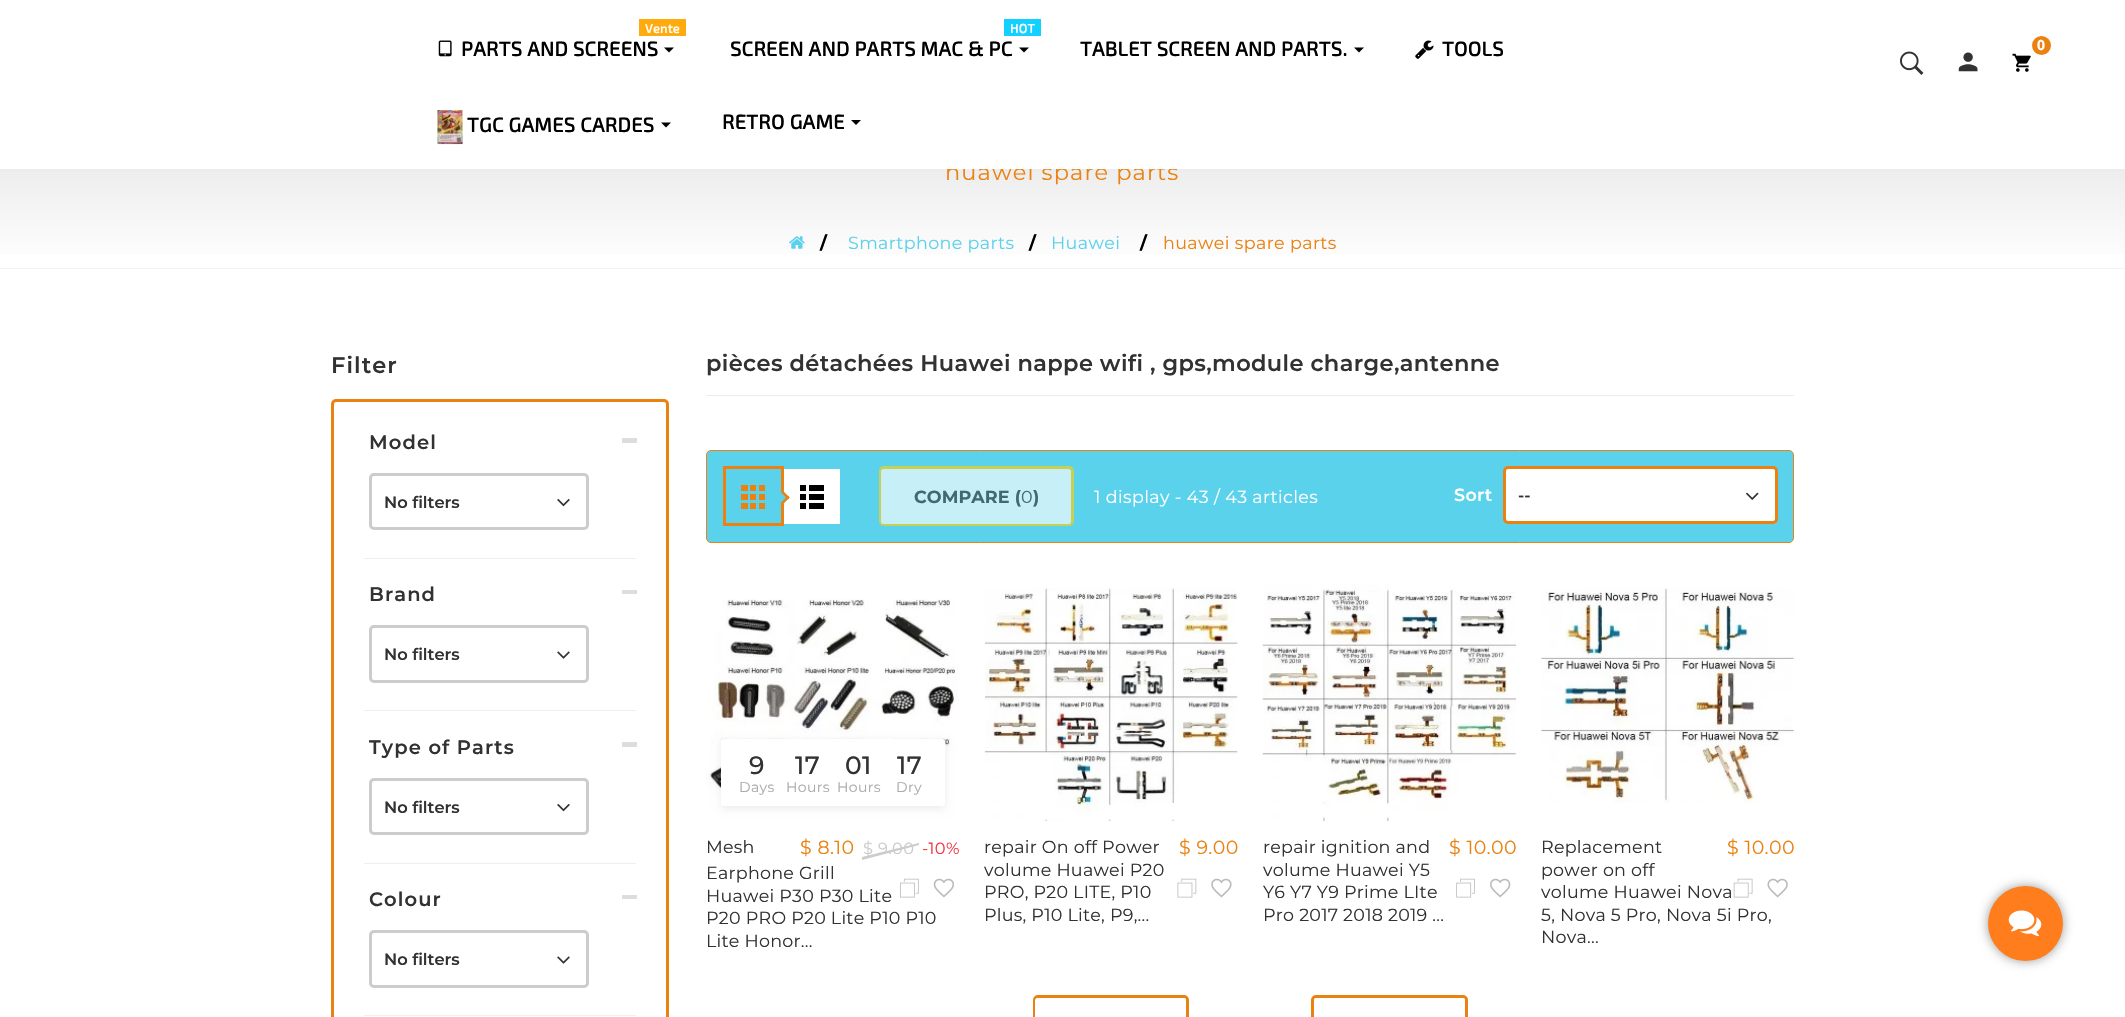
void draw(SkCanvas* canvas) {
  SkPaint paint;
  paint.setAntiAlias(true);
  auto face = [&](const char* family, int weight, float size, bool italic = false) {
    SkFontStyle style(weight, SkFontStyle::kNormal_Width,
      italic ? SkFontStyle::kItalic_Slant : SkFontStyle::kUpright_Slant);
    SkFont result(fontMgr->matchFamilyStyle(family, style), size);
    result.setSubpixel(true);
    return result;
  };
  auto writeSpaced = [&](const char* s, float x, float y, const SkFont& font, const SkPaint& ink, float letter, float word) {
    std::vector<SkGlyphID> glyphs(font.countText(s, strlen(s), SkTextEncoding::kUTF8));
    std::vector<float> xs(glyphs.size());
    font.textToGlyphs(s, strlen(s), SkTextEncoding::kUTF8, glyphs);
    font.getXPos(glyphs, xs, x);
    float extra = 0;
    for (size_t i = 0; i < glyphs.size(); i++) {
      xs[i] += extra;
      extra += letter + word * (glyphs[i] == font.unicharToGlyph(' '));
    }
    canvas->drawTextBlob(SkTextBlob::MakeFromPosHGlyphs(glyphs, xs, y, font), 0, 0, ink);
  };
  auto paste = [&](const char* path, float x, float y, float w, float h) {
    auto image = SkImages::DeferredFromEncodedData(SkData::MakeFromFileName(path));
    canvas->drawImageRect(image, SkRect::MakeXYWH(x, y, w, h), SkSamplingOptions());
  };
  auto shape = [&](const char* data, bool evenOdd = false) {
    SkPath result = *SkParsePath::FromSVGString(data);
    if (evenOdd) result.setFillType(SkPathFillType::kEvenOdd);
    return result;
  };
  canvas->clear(0xffffffff);
  paint.setColor(0xffffab0e);
  canvas->drawRect(SkRect::MakeXYWH(639, 19, 47, 17), paint);
  paste("img/1.png", 438, 40, 14, 17);
  paint.setColor(0xff000000);
  canvas->drawPath(shape("M664 47.5H674L669 52.5Z"), paint);
  paint.setColor(0xff12d0ff);
  canvas->drawRect(SkRect::MakeXYWH(1004, 19, 37, 17), paint);
  paint.setColor(0xff000000);
  canvas->drawPath(shape("M1019 47.5H1029L1024 52.5Z"), paint);
  canvas->drawPath(shape("M1354 47.5H1364L1359 52.5Z"), paint);
  paste("img/2.png", 1415, 40, 19, 19);
  paste("img/3.png", 437, 110, 26, 35);
  canvas->drawPath(shape("M661 122.5H671L666 127.5Z"), paint);
  canvas->drawPath(shape("M851 120H861L856 125Z"), paint);
  paste("img/4.png", 2012, 53, 19, 19);
  paint.setColor(0xffeb8111);
  canvas->drawCircle(2041.5f, 45.5f, 11, paint);
  paint.setStroke(true);
  paint.setStrokeWidth(3);
  paint.setColor(0xffffffff);
  canvas->drawCircle(2041.5f, 45.5f, 11, paint);
  paste("img/5.png", 1900, 51, 24, 24);
  paste("img/6.png", 1958, 52, 20, 20);
  paint.setStroke(false);
  {
    const SkColor colors[] = {0xffe5e5e5, 0xffffffff};
    const float stops[] = {0, 1};
    const SkPoint ends[] = {{1063, 126}, {1063, 268}};
    paint.setShader(SkGradientShader::MakeLinear(ends, colors, stops, 2, SkTileMode::kClamp));
    paint.setAlpha(255);
  }
  canvas->drawRect(SkRect::MakeXYWH(0, 169, 2125, 85), paint);
  paint.setShader(nullptr);
  paint.setColor(0xfff2f2f2);
  canvas->drawRect(SkRect::MakeXYWH(0, 268, 2125, 1), paint);
  paste("img/7.png", 789, 236, 16, 13);
  paint.setStroke(true);
  paint.setColor(0xffeb8111);
  canvas->drawRoundRect(SkRect::MakeXYWH(332.5f, 400.5f, 335, 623), 3.5f, 3.5f, paint);
  paint.setStroke(false);
  paint.setColor(0xffdddddd);
  canvas->drawRect(SkRect::MakeXYWH(622, 438, 15, 5), paint);
  paint.setStroke(true);
  paint.setColor(0xffcccccc);
  canvas->drawRoundRect(SkRect::MakeXYWH(370.5f, 474.5f, 217, 54), 3.5f, 3.5f, paint);
  paste("img/8.png", 557, 499, 13, 8);
  paint.setStroke(false);
  paint.setColor(0xffeeeeee);
  canvas->drawRect(SkRect::MakeXYWH(364, 558, 272, 1), paint);
  paint.setColor(0xffdddddd);
  canvas->drawRect(SkRect::MakeXYWH(622, 590, 15, 4), paint);
  paint.setStroke(true);
  paint.setColor(0xffcccccc);
  canvas->drawRoundRect(SkRect::MakeXYWH(370.5f, 626.5f, 217, 55), 3.5f, 3.5f, paint);
  paste("img/9.png", 557, 651, 13, 8);
  paint.setStroke(false);
  paint.setColor(0xffeeeeee);
  canvas->drawRect(SkRect::MakeXYWH(364, 710, 272, 1), paint);
  paint.setColor(0xffdddddd);
  canvas->drawRect(SkRect::MakeXYWH(622, 742, 15, 5), paint);
  paint.setStroke(true);
  paint.setColor(0xffcccccc);
  canvas->drawRoundRect(SkRect::MakeXYWH(370.5f, 779.5f, 217, 54), 3.5f, 3.5f, paint);
  paste("img/8.png", 557, 804, 13, 8);
  paint.setStroke(false);
  paint.setColor(0xffeeeeee);
  canvas->drawRect(SkRect::MakeXYWH(364, 863, 272, 1), paint);
  paint.setColor(0xffdddddd);
  canvas->drawRect(SkRect::MakeXYWH(622, 895, 15, 4), paint);
  paint.setStroke(true);
  paint.setColor(0xffcccccc);
  canvas->drawRoundRect(SkRect::MakeXYWH(370.5f, 931.5f, 217, 55), 3.5f, 3.5f, paint);
  paste("img/9.png", 557, 956, 13, 8);
  paint.setStroke(false);
  paint.setColor(0xffeeeeee);
  canvas->drawRect(SkRect::MakeXYWH(364, 1015, 272, 1), paint);
  paint.setColor(0xffededed);
  canvas->drawRect(SkRect::MakeXYWH(706, 395, 1088, 1), paint);
  paint.setColor(0xff5bd2ec);
  canvas->drawRoundRect(SkRect::MakeXYWH(706.5f, 450.5f, 1087, 92), 4.5f, 4.5f, paint);
  paint.setStroke(true);
  paint.setStrokeWidth(1);
  paint.setColor(0xffeb8111);
  canvas->drawRoundRect(SkRect::MakeXYWH(706.5f, 450.5f, 1087, 92), 4.5f, 4.5f, paint);
  paint.setStrokeWidth(3);
  canvas->drawRect(SkRect::MakeXYWH(724.5f, 467.5f, 58, 57), paint);
  paint.setStroke(false);
  {
    const struct { float x, y, w, h; SkColor color; } items[] = {
      {759, 503, 6, 6, 0xffeb8111},
      {750, 503, 6, 6, 0xffeb8111},
      {741, 503, 7, 6, 0xffeb8111},
      {759, 494, 6, 6, 0xffeb8111},
      {741, 494, 7, 6, 0xffeb8111},
      {759, 485, 6, 6, 0xffeb8111},
      {750, 485, 6, 6, 0xffeb8111},
      {741, 485, 7, 6, 0xffeb8111},
      {750, 494, 6, 6, 0xffeb8111},
      {784, 469, 56, 55, 0xffffffff},
    };
    for (auto [x, y, w, h, color] : items) {
      paint.setColor(color);
      canvas->drawRect(SkRect::MakeXYWH(x, y, w, h), paint);
    }
  }
  paint.setColor(0xff5bd2ec);
  canvas->drawPath(shape("M782.5 490.5L789.5 497.5L782.5 504.5L775.5 497.5Z"), paint);
  paint.setColor(0xffeb8111);
  canvas->drawPath(shape("M782.5 490.5L789.5 497.5L788 499.5L780.5 492Z"), paint);
  canvas->drawPath(shape("M788 495.5L789.5 497.5L782.5 504.5L780.5 503Z"), paint);
  {
    const struct { float x, y, w, h; SkColor color; } items[] = {
      {809, 485, 15, 6, 0xff000000},
      {809, 494, 15, 6, 0xff000000},
      {809, 503, 15, 6, 0xff000000},
      {800, 503, 6, 6, 0xff000000},
      {800, 494, 6, 6, 0xff000000},
      {800, 485, 6, 6, 0xff000000},
    };
    for (auto [x, y, w, h, color] : items) {
      paint.setColor(color);
      canvas->drawRect(SkRect::MakeXYWH(x, y, w, h), paint);
    }
  }
  paint.setStroke(true);
  paint.setColor(0xffc6d153);
  canvas->drawRoundRect(SkRect::MakeXYWH(880.5f, 467.5f, 192, 57), 3.5f, 3.5f, paint);
  paint.setStroke(false);
  paint.setColor(0xffc6eff8);
  canvas->drawRoundRect(SkRect::MakeXYWH(881, 469, 190, 55), 2.5f, 2.5f, paint);
  paint.setColor(0xffffffff);
  canvas->drawRoundRect(SkRect::MakeXYWH(1504.5f, 467.5f, 272, 55), 3.5f, 3.5f, paint);
  paint.setStroke(true);
  paint.setColor(0xffeb8111);
  canvas->drawRoundRect(SkRect::MakeXYWH(1504.5f, 467.5f, 272, 55), 3.5f, 3.5f, paint);
  paste("img/10.png", 1746, 492, 13, 8);
  paste("img/11.png", 706, 599, 252, 204);
  paint.setStroke(false);
  paint.setColor(0x12000000);
  paint.setMaskFilter(SkMaskFilter::MakeBlur(kNormal_SkBlurStyle, 4));
  canvas->drawRect(SkRect::MakeXYWH(721, 741, 224, 68), paint);
  paint.setMaskFilter(nullptr);
  paint.setColor(0xffffffff);
  canvas->drawRoundRect(SkRect::MakeXYWH(721, 739, 224, 67), 2.5f, 2.5f, paint);
  paint.setColor(0xffcccccc);
  canvas->drawPath(shape("M862 857L919 843V845L862 860Z"), paint);
  paste("img/12.png", 900, 878, 19, 20);
  paste("img/13.png", 933, 878, 21, 20);
  paste("img/14.png", 985, 588, 253, 233);
  paste("img/15.png", 1177, 878, 20, 20);
  paste("img/16.png", 1211, 878, 21, 20);
  paint.setStroke(true);
  paint.setColor(0xffeb8111);
  canvas->drawRoundRect(SkRect::MakeXYWH(1034.5f, 996.5f, 153, 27), 3.5f, 3.5f, paint);
  paint.setStroke(false);
  paint.setColor(0xffffffff);
  canvas->drawRoundRect(SkRect::MakeXYWH(1035, 998, 151, 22), 2.5f, 2.5f, paint);
  paste("img/17.png", 1262, 584, 254, 237);
  paste("img/18.png", 1456, 878, 19, 20);
  paste("img/19.png", 1490, 878, 21, 20);
  paint.setStroke(true);
  paint.setColor(0xffeb8111);
  canvas->drawRoundRect(SkRect::MakeXYWH(1312.5f, 996.5f, 154, 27), 3.5f, 3.5f, paint);
  paint.setStroke(false);
  paint.setColor(0xffffffff);
  canvas->drawRoundRect(SkRect::MakeXYWH(1314, 998, 151, 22), 2.5f, 2.5f, paint);
  paste("img/20.png", 1541, 588, 253, 215);
  paste("img/21.png", 1733, 878, 20, 20);
  paste("img/22.png", 1767, 878, 21, 20);
  paint.setColor(0xff999999);
  paint.setMaskFilter(SkMaskFilter::MakeBlur(kNormal_SkBlurStyle, 5.5f));
  canvas->drawRoundRect(SkRect::MakeXYWH(1988, 886, 75, 75), 37.5f, 37.5f, paint);
  paint.setMaskFilter(nullptr);
  paint.setColor(0xffff7d1d);
  canvas->drawCircle(2025.5f, 923.5f, 37.5f, paint);
  paste("img/23.png", 2008, 910, 34, 26);
  auto f0 = face("Exo 2", 700, 12.5f);
  paint.setColor(0xffffffff);
  writeSpaced("Vente", 645, 33, f0, paint, 0.38f, 0);
  auto f1 = face("Exo 2", 700, 20);
  paint.setColor(0xff000000);
  writeSpaced("PARTS AND SCREENS", 461, 56, f1, paint, 0.38f, 0);
  paint.setColor(0xffffffff);
  writeSpaced("HOT", 1010, 33, f0, paint, 0.38f, 0);
  paint.setColor(0xff000000);
  {
    const struct { const char* s; float x, y; } items[] = {
      {"SCREEN AND PARTS MAC & PC", 730, 56},
      {"TABLET SCREEN AND PARTS.", 1080, 56},
      {"TOOLS", 1442, 56},
      {"TGC GAMES CARDES", 467, 132},
      {"RETRO GAME", 722, 129},
    };
    for (auto [s, x, y] : items) {
      writeSpaced(s, x, y, f1, paint, 0.38f, 0);
    }
  }
  auto f2 = face("Noto Sans", 700, 14);
  paint.setColor(0xffffffff);
  writeSpaced("0", 2037, 50, f2, paint, 0.38f, 0);
  auto f3 = face("Montserrat", 400, 22.5f);
  paint.setColor(0xffeb8111);
  writeSpaced("huawei spare parts", 945, 180, f3, paint, 1.1f, 0);
  paint.setColor(0xffffffff);
  canvas->drawRect(SkRect::MakeXYWH(947, 163, 231, 6), paint);
  auto f4 = face("Montserrat", 700, 17.5f);
  paint.setColor(0xff000000);
  writeSpaced("/", 820, 249, f4, paint, 0.38f, 0);
  auto f5 = face("Montserrat", 400, 17.5f);
  paint.setColor(0xff5bd2ec);
  writeSpaced("Smartphone parts", 848, 249, f5, paint, 0.38f, 0);
  paint.setColor(0xff000000);
  writeSpaced("/", 1029, 249, f4, paint, 0.38f, 0);
  paint.setColor(0xff5bd2ec);
  writeSpaced("Huawei", 1051, 249, f5, paint, 0.38f, 0);
  paint.setColor(0xff000000);
  writeSpaced("/", 1140, 249, f4, paint, 0.38f, 0);
  paint.setColor(0xffeb8111);
  writeSpaced("huawei spare parts", 1163, 249, f5, paint, 0.38f, 0);
  auto f6 = face("Montserrat", 600, 22.5f);
  paint.setColor(0xff323232);
  writeSpaced("Filter", 331, 373, f6, paint, 1.1f, 0);
  auto f7 = face("Montserrat", 600, 19.5f);
  writeSpaced("Model", 369, 449, f7, paint, 1.1f, 0);
  auto f8 = face("Montserrat", 600, 16.25f);
  canvas->drawString("No filters", 384, 508, f8, paint);
  writeSpaced("Brand", 369, 601, f7, paint, 1.1f, 0);
  canvas->drawString("No filters", 384, 660, f8, paint);
  writeSpaced("Type of Parts", 369, 754, f7, paint, 1.1f, 0);
  canvas->drawString("No filters", 384, 813, f8, paint);
  writeSpaced("Colour", 369, 906, f7, paint, 1.1f, 0);
  canvas->drawString("No filters", 384, 965, f8, paint);
  writeSpaced("pièces détachées Huawei nappe wifi , gps,module charge,antenne", 706, 371, f6, paint, 0.38f, 0);
  paint.setColor(0xff406a73);
  writeSpaced("COMPARE (", 914, 503, f4, paint, 0.1f, 0);
  writeSpaced("0", 1021, 503, f5, paint, 0.1f, 0);
  writeSpaced(")", 1033, 503, f4, paint, 0.1f, 0);
  paint.setColor(0xffffffff);
  writeSpaced("1 display - 43 / 43 articles", 1094, 503, f5, paint, 0.38f, 0);
  auto f9 = face("Montserrat", 600, 17.5f);
  writeSpaced("Sort", 1454, 501, f9, paint, 0.38f, 0);
  paint.setColor(0xff323232);
  canvas->drawString("--", 1518, 501, f8, paint);
  auto f10 = face("Montserrat", 500, 25);
  {
    const struct { const char* s; float x, y; } items[] = {
      {"9", 749, 774},
      {"17", 795, 774},
      {"01", 845, 774},
      {"17", 897, 774},
    };
    for (auto [s, x, y] : items) {
      writeSpaced(s, x, y, f10, paint, 0.38f, 0);
    }
  }
  auto f11 = face("Montserrat", 400, 14);
  paint.setColor(0xffaaaaaa);
  {
    const struct { const char* s; float x, y; } items[] = {
      {"Days", 739, 792},
      {"Hours", 786, 792},
      {"Hours", 837, 792},
      {"Dry", 896, 792},
    };
    for (auto [s, x, y] : items) {
      writeSpaced(s, x, y, f11, paint, 0.38f, 0);
    }
  }
  paint.setColor(0xff323232);
  writeSpaced("Mesh", 706, 853, f5, paint, 0.25f, 0);
  auto f12 = face("Montserrat", 400, 19);
  paint.setColor(0xffeb8111);
  writeSpaced("$ 8.10", 800, 854, f12, paint, 0.38f, 0);
  auto f13 = face("Montserrat", 400, 16.25f);
  paint.setColor(0xffcccccc);
  writeSpaced("$ 9.00", 863, 854, f13, paint, 0.38f, 0);
  paint.setColor(0xfff13340);
  writeSpaced("-10%", 922, 854, f13, paint, 0.38f, 0);
  paint.setColor(0xff323232);
  {
    const struct { const char* s; float x, y; } items[] = {
      {"Earphone Grill", 706, 879},
      {"Huawei P30 P30 Lite", 706, 902},
      {"P20 PRO P20 Lite P10 P10", 706, 924},
      {"Lite Honor...", 706, 947},
      {"repair On off Power", 984, 853},
    };
    for (auto [s, x, y] : items) {
      writeSpaced(s, x, y, f5, paint, 0.25f, 0);
    }
  }
  paint.setColor(0xffeb8111);
  writeSpaced("$ 9.00", 1179, 854, f12, paint, 0.38f, 0);
  paint.setColor(0xff323232);
  {
    const struct { const char* s; float x, y; } items[] = {
      {"volume Huawei P20", 984, 876},
      {"PRO, P20 LITE, P10", 984, 898},
      {"Plus, P10 Lite, P9,...", 984, 921},
      {"repair ignition and", 1263, 853},
    };
    for (auto [s, x, y] : items) {
      writeSpaced(s, x, y, f5, paint, 0.25f, 0);
    }
  }
  paint.setColor(0xffeb8111);
  writeSpaced("$ 10.00", 1449, 854, f12, paint, 0.38f, 0);
  paint.setColor(0xff323232);
  {
    const struct { const char* s; float x, y; } items[] = {
      {"volume Huawei Y5", 1263, 876},
      {"Y6 Y7 Y9 Prime LIte", 1263, 898},
      {"Pro 2017 2018 2019 ...", 1263, 921},
      {"Replacement", 1541, 853},
    };
    for (auto [s, x, y] : items) {
      writeSpaced(s, x, y, f5, paint, 0.25f, 0);
    }
  }
  paint.setColor(0xffeb8111);
  writeSpaced("$ 10.00", 1727, 854, f12, paint, 0.38f, 0);
  paint.setColor(0xff323232);
  {
    const struct { const char* s; float x, y; } items[] = {
      {"power on off", 1541, 876},
      {"volume Huawei Nova", 1541, 898},
      {"5, Nova 5 Pro, Nova 5i Pro,", 1541, 921},
      {"Nova...", 1541, 943},
    };
    for (auto [s, x, y] : items) {
      writeSpaced(s, x, y, f5, paint, 0.25f, 0);
    }
  }
}
